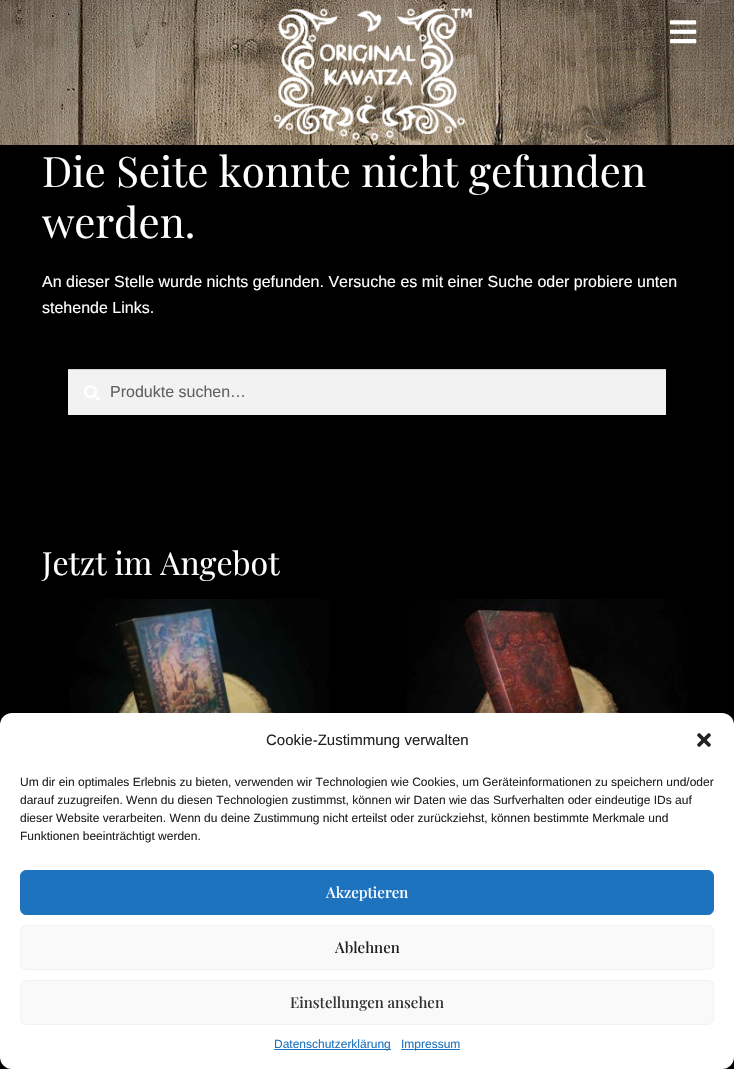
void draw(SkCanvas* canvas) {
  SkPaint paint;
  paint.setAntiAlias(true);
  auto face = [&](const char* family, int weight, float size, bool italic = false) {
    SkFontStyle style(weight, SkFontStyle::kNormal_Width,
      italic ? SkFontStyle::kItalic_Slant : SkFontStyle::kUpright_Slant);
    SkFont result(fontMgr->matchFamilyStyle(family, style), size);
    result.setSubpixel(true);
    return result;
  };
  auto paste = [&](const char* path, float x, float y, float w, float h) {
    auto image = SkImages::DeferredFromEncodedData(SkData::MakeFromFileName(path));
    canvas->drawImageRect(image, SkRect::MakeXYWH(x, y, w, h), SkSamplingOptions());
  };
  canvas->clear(0xff000000);
  paste("img/1.png", 0, 0, 734, 145);
  paste("img/2.png", 273, 8, 199, 133);
  paste("img/3.png", 670, 20, 27, 24);
  paint.setColor(0xfff2f2f2);
  canvas->drawRect(SkRect::MakeXYWH(68, 370, 598, 45), paint);
  paste("img/4.png", 84, 385, 16, 16);
  paint.setColor(0xffd4d4d4);
  canvas->drawRect(SkRect::MakeXYWH(68, 369, 598, 1), paint);
  paste("img/5.png", 69, 599, 261, 114);
  paste("img/6.png", 407, 599, 281, 114);
  paint.setColor(0xffffffff);
  canvas->drawRoundRect(SkRect::MakeXYWH(0, 713, 734, 356), 12, 12, paint);
  paste("img/7.png", 697, 733, 14, 14);
  paint.setColor(0xff1e73be);
  canvas->drawRoundRect(SkRect::MakeXYWH(20.5f, 870.5f, 693, 44), 5.5f, 5.5f, paint);
  paint.setStroke(true);
  paint.setStrokeWidth(1);
  canvas->drawRoundRect(SkRect::MakeXYWH(20.5f, 870.5f, 693, 44), 5.5f, 5.5f, paint);
  paint.setStroke(false);
  paint.setColor(0xfff9f9f9);
  canvas->drawRoundRect(SkRect::MakeXYWH(20.5f, 925.5f, 693, 44), 5.5f, 5.5f, paint);
  paint.setStroke(true);
  paint.setColor(0xfff2f2f2);
  canvas->drawRoundRect(SkRect::MakeXYWH(20.5f, 925.5f, 693, 44), 5.5f, 5.5f, paint);
  paint.setStroke(false);
  paint.setColor(0xfff9f9f9);
  canvas->drawRoundRect(SkRect::MakeXYWH(20.5f, 980.5f, 693, 44), 5.5f, 5.5f, paint);
  paint.setStroke(true);
  paint.setColor(0xfff2f2f2);
  canvas->drawRoundRect(SkRect::MakeXYWH(20.5f, 980.5f, 693, 44), 5.5f, 5.5f, paint);
  paint.setStroke(false);
  paint.setColor(0xff1e73be);
  canvas->drawRect(SkRect::MakeXYWH(274, 1049, 117, 1), paint);
  canvas->drawRect(SkRect::MakeXYWH(401, 1049, 59, 1), paint);
  auto f0 = face("Playfair Display", 400, 41.9f);
  paint.setColor(0xffffffff);
  canvas->drawString("Die Seite konnte nicht gefunden", 42, 187, f0, paint);
  canvas->drawString("werden.", 42, 238, f0, paint);
  auto f1 = face("Liberation Sans", 400, 16);
  canvas->drawString("An dieser Stelle wurde nichts gefunden. Versuche es mit einer Suche oder probiere unten", 42, 287, f1, paint);
  canvas->drawString("stehende Links.", 42, 313, f1, paint);
  paint.setColor(0xff616161);
  canvas->drawString("Produkte suchen…", 110, 397, f1, paint);
  auto f2 = face("Playfair Display", 400, 32);
  paint.setColor(0xffffffff);
  canvas->drawString("Jetzt im Angebot", 42, 575, f2, paint);
  auto f3 = face("Liberation Sans", 400, 15);
  paint.setColor(0xff222222);
  canvas->drawString("Cookie-Zustimmung verwalten", 266, 745, f3, paint);
  auto f4 = face("Liberation Sans", 400, 12);
  {
    const struct { const char* s; float x, y; } items[] = {
      {"Um dir ein optimales Erlebnis zu bieten, verwenden wir Technologien wie Cookies, um Geräteinformationen zu speichern und/oder", 20, 786},
      {"darauf zuzugreifen. Wenn du diesen Technologien zustimmst, können wir Daten wie das Surfverhalten oder eindeutige IDs auf", 20, 804},
      {"dieser Website verarbeiten. Wenn du deine Zustimmung nicht erteilst oder zurückziehst, können bestimmte Merkmale und", 20, 822},
      {"Funktionen beeinträchtigt werden.", 20, 840},
    };
    for (auto [s, x, y] : items) {
      canvas->drawString(s, x, y, f4, paint);
    }
  }
  auto f5 = face("Playfair Display", 500, 15);
  paint.setColor(0xffffffff);
  canvas->drawString("Akzeptieren", 326, 898, f5, paint);
  paint.setColor(0xff222222);
  canvas->drawString("Ablehnen", 335, 953, f5, paint);
  paint.setColor(0xff333333);
  canvas->drawString("Einstellungen ansehen", 290, 1008, f5, paint);
  paint.setColor(0xff1e73be);
  canvas->drawString("Datenschutzerklärung", 274, 1048, f4, paint);
  canvas->drawString("Impressum", 401, 1048, f4, paint);
}
